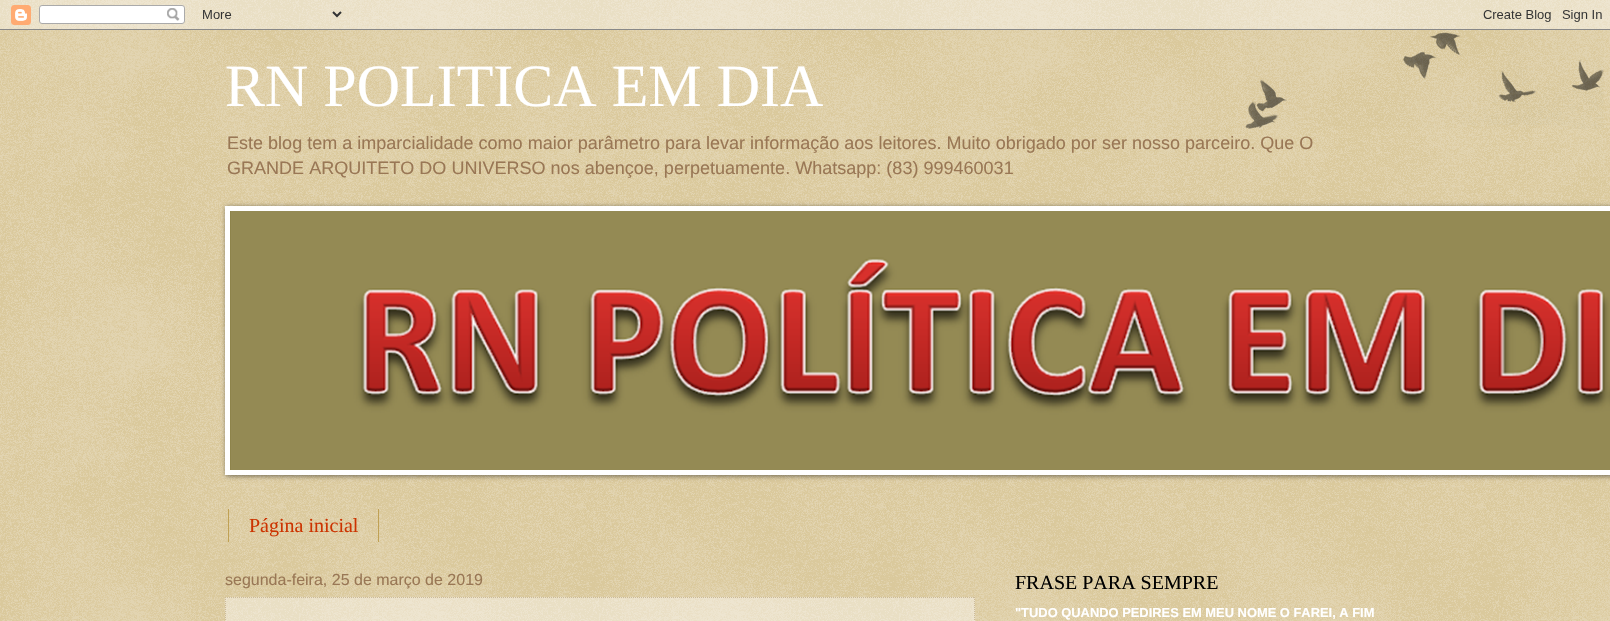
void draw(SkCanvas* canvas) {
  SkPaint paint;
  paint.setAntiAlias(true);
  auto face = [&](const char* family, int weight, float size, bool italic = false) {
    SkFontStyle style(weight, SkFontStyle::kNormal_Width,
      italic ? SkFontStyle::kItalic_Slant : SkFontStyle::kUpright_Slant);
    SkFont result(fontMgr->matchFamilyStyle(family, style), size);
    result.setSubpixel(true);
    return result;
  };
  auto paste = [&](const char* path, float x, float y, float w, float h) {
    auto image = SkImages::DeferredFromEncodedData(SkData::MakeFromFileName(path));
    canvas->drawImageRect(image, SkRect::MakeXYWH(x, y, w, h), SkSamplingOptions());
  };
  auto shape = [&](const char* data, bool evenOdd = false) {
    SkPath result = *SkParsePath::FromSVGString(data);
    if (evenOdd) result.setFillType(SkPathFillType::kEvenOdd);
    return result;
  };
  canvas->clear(0xffc0a154);
  paste("img/1.png", 0, 0, 1610, 621);
  paste("img/2.png", 0, 0, 1610, 30);
  paint.setColor(0x80000000);
  paint.setMaskFilter(SkMaskFilter::MakeBlur(kNormal_SkBlurStyle, 2.5f));
  canvas->drawRect(SkRect::MakeXYWH(226, 207, 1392, 269), paint);
  paint.setMaskFilter(nullptr);
  paint.setColor(0xffffffff);
  canvas->drawRect(SkRect::MakeXYWH(225, 206, 1385, 269), paint);
  paste("img/3.png", 230, 211, 1380, 259);
  {
    const struct { float x, y, w, h; SkColor color; } items[] = {
      {378, 509, 1, 33, 0xffc0a154},
      {228, 509, 1, 33, 0xffc0a154},
      {225, 597, 750, 24, 0x66ffffff},
    };
    for (auto [x, y, w, h, color] : items) {
      paint.setColor(color);
      canvas->drawRect(SkRect::MakeXYWH(x, y, w, h), paint);
    }
  }
  paint.setStroke(true);
  paint.setStrokeWidth(1);
  paint.setColor(0xffccbb99);
  paint.setPathEffect(SkDashPathEffect::Make({{1, 1}}, 0));
  canvas->drawPath(shape("M225 597.5H975"), paint);
  paint.setPathEffect(nullptr);
  paint.setPathEffect(SkDashPathEffect::Make({{1, 1}}, 0));
  canvas->drawPath(shape("M974.5 597V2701"), paint);
  paint.setPathEffect(nullptr);
  paint.setPathEffect(SkDashPathEffect::Make({{1, 1}}, 0));
  canvas->drawPath(shape("M225.5 597V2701"), paint);
  paint.setPathEffect(nullptr);
  paste("img/4.png", 1245, 32, 359, 97);
  auto f0 = face("Liberation Serif", 400, 60);
  paint.setStroke(false);
  paint.setColor(0xffffffff);
  canvas->drawString("RN POLITICA EM DIA", 225, 106, f0, paint);
  auto f1 = face("Liberation Sans", 400, 18.03f);
  paint.setColor(0xff997755);
  canvas->drawString("Este blog tem a imparcialidade como maior parâmetro para levar informação aos leitores. Muito obrigado por ser nosso parceiro. Que O", 227, 149, f1, paint);
  canvas->drawString("GRANDE ARQUITETO DO UNIVERSO nos abençoe, perpetuamente. Whatsapp: (83) 999460031", 227, 174, f1, paint);
  auto f2 = face("Liberation Serif", 400, 20);
  paint.setColor(0xffcc3300);
  canvas->drawString("Página inicial", 249, 532, f2, paint);
  auto f3 = face("Liberation Sans", 400, 16);
  paint.setColor(0xff997755);
  canvas->drawString("segunda-feira, 25 de março de 2019", 225, 585, f3, paint);
  paint.setColor(0xff000000);
  canvas->drawString("FRASE PARA SEMPRE", 1015, 589, f2, paint);
  auto f4 = face("Liberation Sans", 700, 12.9f);
  paint.setColor(0xffffffff);
  canvas->drawString("\"TUDO QUANDO PEDIRES EM MEU NOME O FAREI, A FIM", 1015, 617, f4, paint);
}
